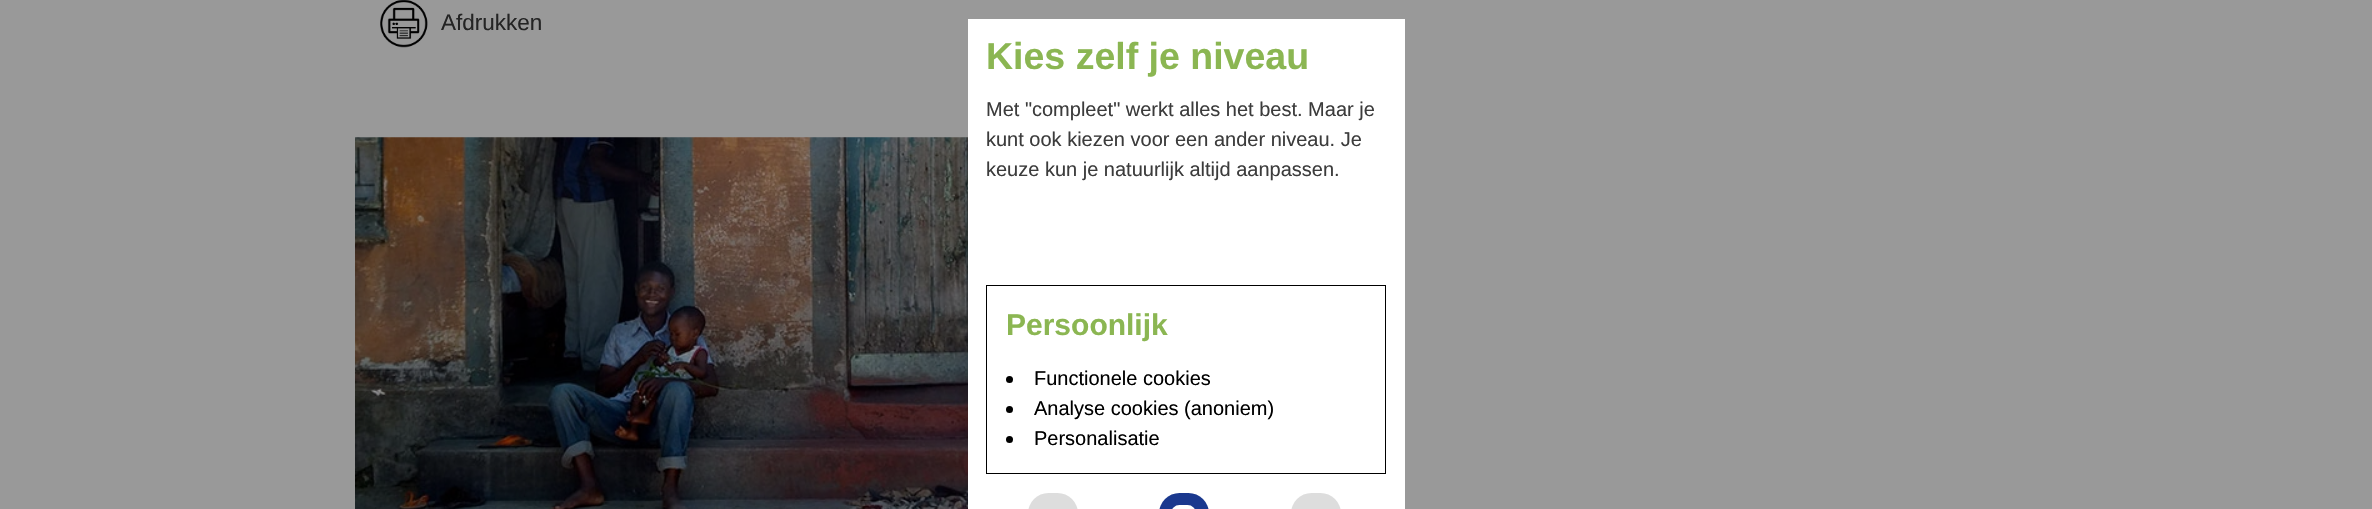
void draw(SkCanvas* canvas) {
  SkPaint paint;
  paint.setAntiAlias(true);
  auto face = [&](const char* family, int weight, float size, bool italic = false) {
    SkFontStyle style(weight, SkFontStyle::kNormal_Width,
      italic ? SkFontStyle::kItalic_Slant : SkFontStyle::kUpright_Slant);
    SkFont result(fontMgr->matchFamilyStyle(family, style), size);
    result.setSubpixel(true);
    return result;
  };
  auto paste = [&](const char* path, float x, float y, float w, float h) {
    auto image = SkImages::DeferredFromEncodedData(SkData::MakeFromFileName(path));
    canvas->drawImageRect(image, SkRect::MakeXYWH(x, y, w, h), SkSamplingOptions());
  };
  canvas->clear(0xff999999);
  paste("img/1.png", 380, 0, 48, 48);
  paste("img/2.png", 355, 137, 613, 372);
  paint.setColor(0xffffffff);
  canvas->drawRect(SkRect::MakeXYWH(968, 19, 437, 490), paint);
  paint.setStroke(true);
  paint.setStrokeWidth(1);
  paint.setColor(0xff000000);
  canvas->drawRect(SkRect::MakeXYWH(986.5f, 285.5f, 399, 188), paint);
  paint.setStroke(false);
  canvas->drawCircle(1009.5f, 379.5f, 3.5f, paint);
  canvas->drawCircle(1009.5f, 409.5f, 3.5f, paint);
  canvas->drawCircle(1009.5f, 439.5f, 3.5f, paint);
  paint.setColor(0xffdddddd);
  canvas->drawRoundRect(SkRect::MakeXYWH(1028, 493, 50, 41), 25, 25, paint);
  paint.setColor(0xff1a388e);
  canvas->drawRoundRect(SkRect::MakeXYWH(1159, 493, 50, 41), 25, 25, paint);
  paint.setColor(0xffffffff);
  canvas->drawRoundRect(SkRect::MakeXYWH(1171, 505, 25, 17), 12.5f, 12.5f, paint);
  paint.setColor(0xffdddddd);
  canvas->drawRoundRect(SkRect::MakeXYWH(1291, 493, 50, 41), 25, 25, paint);
  auto f0 = face("Liberation Sans", 400, 22.5f);
  paint.setColor(0xff242424);
  canvas->drawString("Afdrukken", 441, 30, f0, paint);
  auto f1 = face("Liberation Sans", 700, 37.5f);
  paint.setColor(0xff8bb652);
  canvas->drawString("Kies zelf je niveau", 986, 69, f1, paint);
  auto f2 = face("Liberation Sans", 400, 20);
  paint.setColor(0xff3c3c3c);
  {
    const struct { const char* s; float x, y; } items[] = {
      {"Met \"compleet\" werkt alles het best. Maar je", 986, 116},
      {"kunt ook kiezen voor een ander niveau. Je", 986, 146},
      {"keuze kun je natuurlijk altijd aanpassen.", 986, 176},
    };
    for (auto [s, x, y] : items) {
      canvas->drawString(s, x, y, f2, paint);
    }
  }
  auto f3 = face("Liberation Sans", 700, 30);
  paint.setColor(0xff8bb652);
  canvas->drawString("Persoonlijk", 1006, 335, f3, paint);
  paint.setColor(0xff000000);
  {
    const struct { const char* s; float x, y; } items[] = {
      {"Functionele cookies", 1034, 385},
      {"Analyse cookies (anoniem)", 1034, 415},
      {"Personalisatie", 1034, 445},
    };
    for (auto [s, x, y] : items) {
      canvas->drawString(s, x, y, f2, paint);
    }
  }
}
